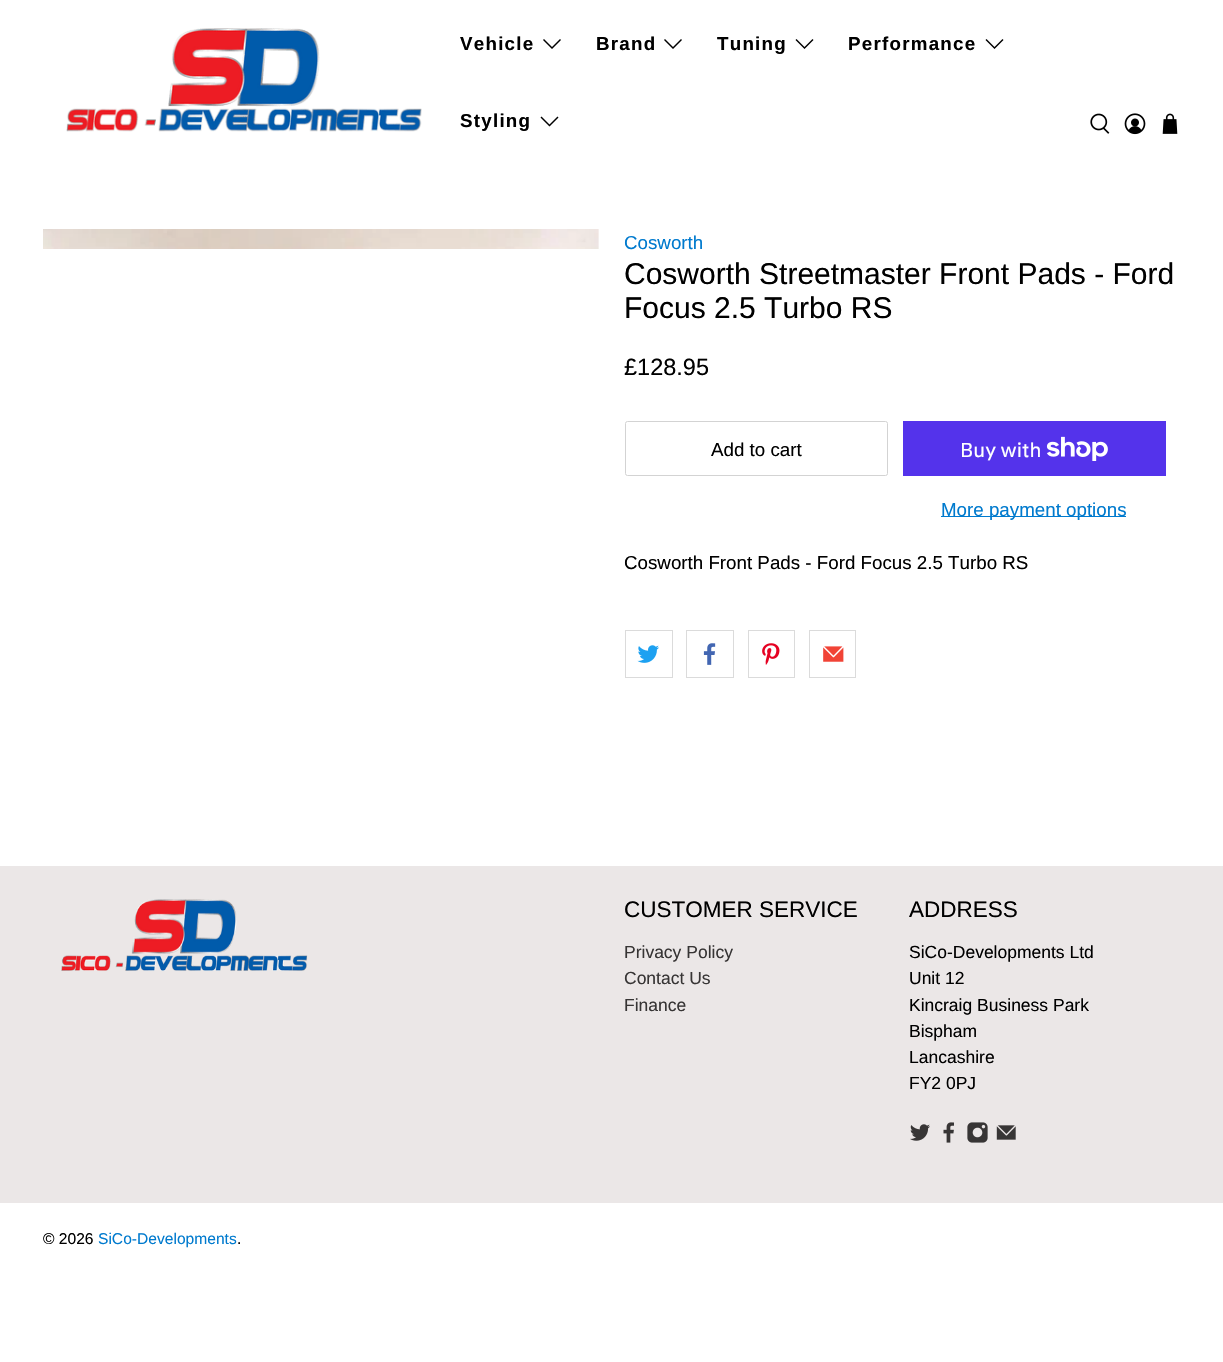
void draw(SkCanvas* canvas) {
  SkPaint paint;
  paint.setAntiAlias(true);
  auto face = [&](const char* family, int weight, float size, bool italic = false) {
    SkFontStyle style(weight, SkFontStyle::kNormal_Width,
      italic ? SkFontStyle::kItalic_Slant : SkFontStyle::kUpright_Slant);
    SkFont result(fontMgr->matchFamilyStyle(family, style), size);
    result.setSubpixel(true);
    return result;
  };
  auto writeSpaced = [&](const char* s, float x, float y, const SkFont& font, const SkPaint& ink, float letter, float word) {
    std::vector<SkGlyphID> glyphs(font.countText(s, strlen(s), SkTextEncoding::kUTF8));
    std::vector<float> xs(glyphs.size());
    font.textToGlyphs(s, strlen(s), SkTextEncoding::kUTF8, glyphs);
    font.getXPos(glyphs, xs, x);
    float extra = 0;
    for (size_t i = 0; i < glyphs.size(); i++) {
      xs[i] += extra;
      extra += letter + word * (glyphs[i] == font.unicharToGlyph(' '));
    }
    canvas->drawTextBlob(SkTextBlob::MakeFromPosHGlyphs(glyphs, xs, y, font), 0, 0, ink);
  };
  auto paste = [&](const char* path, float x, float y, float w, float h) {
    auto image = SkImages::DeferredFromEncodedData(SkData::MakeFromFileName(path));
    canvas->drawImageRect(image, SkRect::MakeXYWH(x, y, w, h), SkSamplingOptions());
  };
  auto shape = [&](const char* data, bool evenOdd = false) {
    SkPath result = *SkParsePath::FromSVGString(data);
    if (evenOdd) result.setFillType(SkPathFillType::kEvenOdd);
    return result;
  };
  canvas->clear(0xffffffff);
  paste("img/1.png", 66, 28, 356, 104);
  paint.setColor(0xff000000);
  canvas->drawPath(shape("M552 49L543 40L544 39L552 47L560 39L561 40Z"), paint);
  canvas->drawPath(shape("M673 49L664 40L665 39L673 47L681 39L682 40Z"), paint);
  canvas->drawPath(shape("M804.5 49L795.5 40L796.5 39L804.5 47L812.5 39L813.5 40Z"), paint);
  canvas->drawPath(shape("M994.5 49L985.5 40L986.5 39L994.5 47L1002.5 39L1003.5 40Z"), paint);
  canvas->drawPath(shape("M549.5 126.5L540.5 117.5L541.5 116.5L549.5 124.5L557.5 116.5L558.5 117.5Z"), paint);
  paste("img/2.png", 1090, 113, 20, 21);
  paste("img/3.png", 1124, 113, 22, 22);
  paste("img/4.png", 1162, 113, 16, 21);
  paste("img/5.png", 43, 229, 556, 20);
  paint.setStroke(true);
  paint.setStrokeWidth(1);
  paint.setColor(0xffd3d3d3);
  canvas->drawRoundRect(SkRect::MakeXYWH(625.5f, 421.5f, 262, 54), 2, 2, paint);
  paint.setStroke(false);
  paint.setColor(0xff5433eb);
  canvas->drawRect(SkRect::MakeXYWH(903, 421, 263, 55), paint);
  paste("img/6.png", 1046, 436, 62, 25);
  paint.setColor(0xff007ace);
  canvas->drawRect(SkRect::MakeXYWH(941, 516, 185, 1), paint);
  paint.setStroke(true);
  paint.setColor(0xffdbdbdb);
  canvas->drawRect(SkRect::MakeXYWH(625.5f, 630.5f, 47, 47), paint);
  paste("img/7.png", 637, 645, 22, 18);
  canvas->drawRect(SkRect::MakeXYWH(686.5f, 630.5f, 47, 47), paint);
  paste("img/8.png", 703, 643, 13, 22);
  canvas->drawRect(SkRect::MakeXYWH(748.5f, 630.5f, 46, 47), paint);
  paste("img/9.png", 762, 643, 18, 22);
  canvas->drawRect(SkRect::MakeXYWH(809.5f, 630.5f, 46, 47), paint);
  paste("img/10.png", 823, 646, 21, 16);
  paint.setStroke(false);
  paint.setColor(0xffebe7e7);
  canvas->drawRect(SkRect::MakeXYWH(0, 866, 1223, 337), paint);
  paste("img/11.png", 61, 899, 247, 72);
  paste("img/12.png", 910, 1124, 20, 17);
  paste("img/13.png", 943, 1122, 11, 21);
  paste("img/14.png", 967, 1122, 21, 21);
  paste("img/15.png", 996, 1125, 20, 15);
  auto f0 = face("Liberation Sans", 700, 18.75f);
  paint.setColor(0xff000000);
  {
    const struct { const char* s; float x, y; } items[] = {
      {"Vehicle", 460, 50},
      {"Brand", 596, 50},
      {"Tuning", 717, 50},
      {"Performance", 848, 50},
      {"Styling", 460, 127},
    };
    for (auto [s, x, y] : items) {
      writeSpaced(s, x, y, f0, paint, 1.25f, 0);
    }
  }
  auto f1 = face("Liberation Sans", 400, 18.75f);
  paint.setColor(0xff007ace);
  canvas->drawString("Cosworth", 624, 249, f1, paint);
  auto f2 = face("Liberation Sans", 400, 30);
  paint.setColor(0xff000000);
  canvas->drawString("Cosworth Streetmaster Front Pads - Ford", 624, 284, f2, paint);
  canvas->drawString("Focus 2.5 Turbo RS", 624, 318, f2, paint);
  auto f3 = face("Liberation Sans", 400, 23.5f);
  canvas->drawString("£128.95", 624, 375, f3, paint);
  canvas->drawString("Add to cart", 711, 456, f1, paint);
  auto f4 = face("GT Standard", 400, 20);
  paint.setColor(0xffffffff);
  canvas->drawString("Buy with", 960, 457, f4, paint);
  paint.setColor(0xff007ace);
  canvas->drawString("More payment options", 941, 516, f1, paint);
  paint.setColor(0xff000000);
  canvas->drawString("Cosworth Front Pads - Ford Focus 2.5 Turbo RS", 624, 569, f1, paint);
  auto f5 = face("Liberation Sans", 400, 22.5f);
  canvas->drawString("CUSTOMER SERVICE", 624, 917, f5, paint);
  auto f6 = face("Liberation Sans", 400, 17.5f);
  paint.setColor(0xff373535);
  {
    const struct { const char* s; float x, y; } items[] = {
      {"Privacy Policy", 624, 958},
      {"Contact Us", 624, 984},
      {"Finance", 624, 1011},
    };
    for (auto [s, x, y] : items) {
      canvas->drawString(s, x, y, f6, paint);
    }
  }
  paint.setColor(0xff000000);
  canvas->drawString("ADDRESS", 909, 917, f5, paint);
  {
    const struct { const char* s; float x, y; } items[] = {
      {"SiCo-Developments Ltd", 909, 958},
      {"Unit 12", 909, 984},
      {"Kincraig Business Park", 909, 1011},
      {"Bispham", 909, 1037},
      {"Lancashire", 909, 1063},
      {"FY2 0PJ", 909, 1089},
    };
    for (auto [s, x, y] : items) {
      canvas->drawString(s, x, y, f6, paint);
    }
  }
  auto f7 = face("Liberation Sans", 400, 15.6f);
  canvas->drawString("© 2026", 43, 1244, f7, paint);
  paint.setColor(0xff007ace);
  canvas->drawString("SiCo-Developments", 98, 1244, f7, paint);
  paint.setColor(0xff000000);
  canvas->drawString(".", 237, 1244, f7, paint);
}
